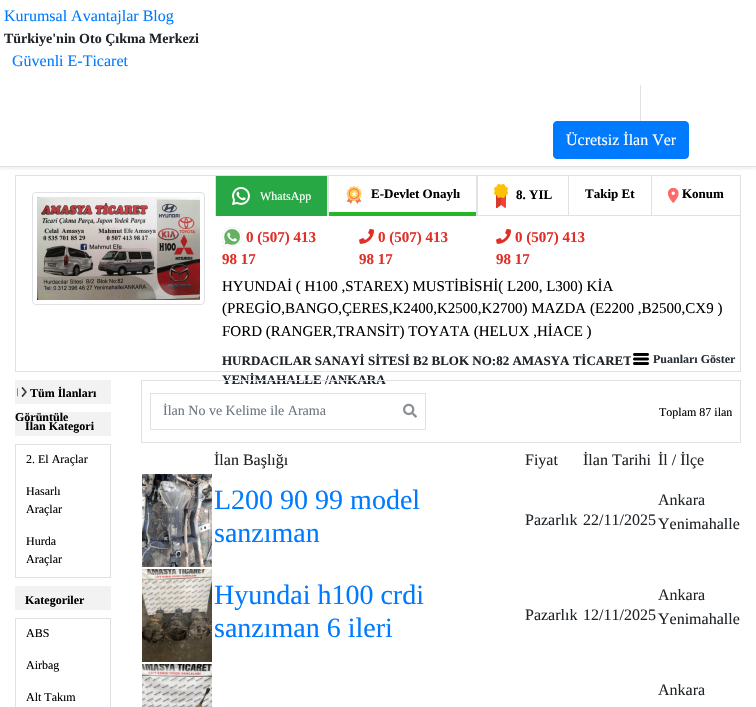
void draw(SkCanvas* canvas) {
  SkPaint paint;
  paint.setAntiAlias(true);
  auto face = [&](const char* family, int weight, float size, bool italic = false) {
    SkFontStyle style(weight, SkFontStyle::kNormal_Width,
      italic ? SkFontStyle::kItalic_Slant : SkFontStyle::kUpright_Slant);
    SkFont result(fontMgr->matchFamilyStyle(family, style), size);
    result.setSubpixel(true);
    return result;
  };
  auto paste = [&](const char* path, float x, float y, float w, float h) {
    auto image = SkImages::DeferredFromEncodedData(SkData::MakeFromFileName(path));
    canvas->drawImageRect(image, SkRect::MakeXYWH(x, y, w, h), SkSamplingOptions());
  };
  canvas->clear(0xffffffff);
  canvas->save();
  canvas->clipRect(SkRect::MakeXYWH(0, 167, 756, 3));
  paint.setColor(0x12000000);
  paint.setMaskFilter(SkMaskFilter::MakeBlur(kNormal_SkBlurStyle, 2));
  canvas->drawRect(SkRect::MakeXYWH(0, 2, 756, 167), paint);
  paint.setMaskFilter(nullptr);
  canvas->restore();
  paint.setColor(0xffdee2e6);
  canvas->drawRect(SkRect::MakeXYWH(0, 166, 756, 1), paint);
  canvas->drawRect(SkRect::MakeXYWH(640, 85, 1, 37), paint);
  paint.setColor(0xff007bff);
  canvas->drawRoundRect(SkRect::MakeXYWH(553.5f, 121.5f, 135, 37), 3.5f, 3.5f, paint);
  paint.setStroke(true);
  paint.setStrokeWidth(1);
  canvas->drawRoundRect(SkRect::MakeXYWH(553.5f, 121.5f, 135, 37), 3.5f, 3.5f, paint);
  paint.setColor(0xffdee2e6);
  canvas->drawRect(SkRect::MakeXYWH(15.5f, 175.5f, 725, 196), paint);
  canvas->drawRoundRect(SkRect::MakeXYWH(32.5f, 192.5f, 172, 112), 3.5f, 3.5f, paint);
  paste("img/1.png", 37, 197, 163, 103);
  paint.setStroke(false);
  {
    const struct { float x, y, w, h; SkColor color; } items[] = {
      {478, 215, 263, 1, 0xffdee2e6},
      {327, 176, 2, 40, 0xffdee2e6},
      {215, 176, 1, 40, 0xffdee2e6},
      {216, 176, 111, 40, 0xff28a745},
    };
    for (auto [x, y, w, h, color] : items) {
      paint.setColor(color);
      canvas->drawRect(SkRect::MakeXYWH(x, y, w, h), paint);
    }
  }
  paste("img/2.png", 232, 187, 18, 18);
  paint.setColor(0xff25b725);
  canvas->drawRect(SkRect::MakeXYWH(329, 212, 147, 4), paint);
  paint.setColor(0xffdee2e6);
  canvas->drawRect(SkRect::MakeXYWH(476, 176, 2, 40), paint);
  paste("img/3.png", 346, 186, 16, 18);
  canvas->drawRect(SkRect::MakeXYWH(568, 176, 1, 40), paint);
  paste("img/4.png", 494, 184, 14, 24);
  canvas->drawRect(SkRect::MakeXYWH(651, 176, 1, 40), paint);
  paste("img/5.png", 668, 188, 11, 15);
  paste("img/6.png", 222, 227, 20, 20);
  paste("img/7.png", 359, 228, 15, 16);
  paste("img/7.png", 496, 228, 15, 16);
  paste("img/8.png", 633, 353, 16, 12);
  paint.setColor(0xfff2f2f2);
  canvas->drawRect(SkRect::MakeXYWH(15, 380, 96, 24), paint);
  paste("img/9.png", 17, 387, 10, 10);
  canvas->drawRect(SkRect::MakeXYWH(15, 412, 96, 24), paint);
  paint.setStroke(true);
  paint.setColor(0xffdee2e6);
  canvas->drawRect(SkRect::MakeXYWH(15.5f, 444.5f, 95, 133), paint);
  paint.setStroke(false);
  paint.setColor(0xfff2f2f2);
  canvas->drawRect(SkRect::MakeXYWH(15, 586, 96, 24), paint);
  paint.setStroke(true);
  paint.setColor(0xffdee2e6);
  canvas->drawRect(SkRect::MakeXYWH(15.5f, 618.5f, 95, 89), paint);
  paste("img/11.png", 142, 474, 70, 93);
  paste("img/12.png", 142, 569, 70, 93);
  paste("img/13.png", 142, 664, 70, 43);
  auto f0 = face("Liberation Serif", 400, 16);
  paint.setStroke(false);
  paint.setColor(0xff007bff);
  canvas->drawString("Kurumsal Avantajlar Blog", 4, 21, f0, paint);
  auto f1 = face("Liberation Serif", 700, 14);
  paint.setColor(0xff212529);
  canvas->drawString("Türkiye'nin Oto Çıkma Merkezi", 4, 43, f1, paint);
  paint.setColor(0xff007bff);
  canvas->drawString("Güvenli E-Ticaret", 12, 66, f0, paint);
  paint.setColor(0xffffffff);
  canvas->drawString("Ücretsiz İlan Ver", 566, 145, f0, paint);
  auto f2 = face("Liberation Serif", 400, 12);
  canvas->drawString("WhatsApp", 260, 200, f2, paint);
  auto f3 = face("Liberation Serif", 700, 13);
  paint.setColor(0xff000000);
  {
    const struct { const char* s; float x, y; } items[] = {
      {"E-Devlet Onaylı", 371, 198},
      {"8. YIL", 516, 199},
      {"Takip Et", 585, 198},
      {"Konum", 682, 198},
    };
    for (auto [s, x, y] : items) {
      canvas->drawString(s, x, y, f3, paint);
    }
  }
  auto f4 = face("Liberation Serif", 700, 15);
  paint.setColor(0xffe02f27);
  {
    const struct { const char* s; float x, y; } items[] = {
      {"0 (507) 413", 246, 242},
      {"98 17", 222, 264},
      {"0 (507) 413", 378, 242},
      {"98 17", 359, 264},
      {"0 (507) 413", 515, 242},
      {"98 17", 496, 264},
    };
    for (auto [s, x, y] : items) {
      canvas->drawString(s, x, y, f4, paint);
    }
  }
  auto f5 = face("Liberation Serif", 400, 15);
  paint.setColor(0xff000000);
  {
    const struct { const char* s; float x, y; } items[] = {
      {"HYUNDAİ ( H100 ,STAREX) MUSTİBİSHİ( L200, L300) KİA", 222, 291},
      {"(PREGİO,BANGO,ÇERES,K2400,K2500,K2700) MAZDA (E2200 ,B2500,CX9 )", 222, 313},
      {"FORD (RANGER,TRANSİT) TOYATA (HELUX ,HİACE )", 222, 336},
    };
    for (auto [s, x, y] : items) {
      canvas->drawString(s, x, y, f5, paint);
    }
  }
  paint.setColor(0xff212529);
  canvas->drawString("HURDACILAR SANAYİ SİTESİ B2 BLOK NO:82 AMASYA TİCARET", 222, 365, f3, paint);
  canvas->drawString("YENİMAHALLE /ANKARA", 222, 384, f3, paint);
  paint.setColor(0xffffffff);
  canvas->drawRect(SkRect::MakeXYWH(631, 356, 1, 3), paint);
  auto f6 = face("Liberation Serif", 700, 12);
  paint.setColor(0xff2b3139);
  canvas->drawString("Puanları Göster", 653, 363, f6, paint);
  paint.setColor(0xff000000);
  {
    const struct { const char* s; float x, y; } items[] = {
      {"Tüm İlanları", 30, 397},
      {"Görüntüle", 15, 421},
      {"İlan Kategori", 25, 430},
    };
    for (auto [s, x, y] : items) {
      canvas->drawString(s, x, y, f6, paint);
    }
  }
  {
    const struct { const char* s; float x, y; } items[] = {
      {"2. El Araçlar", 26, 463},
      {"Hasarlı", 26, 495},
      {"Araçlar", 26, 513},
      {"Hurda", 26, 545},
      {"Araçlar", 26, 563},
    };
    for (auto [s, x, y] : items) {
      canvas->drawString(s, x, y, f2, paint);
    }
  }
  canvas->drawString("Kategoriler", 25, 604, f6, paint);
  {
    const struct { const char* s; float x, y; } items[] = {
      {"ABS", 26, 637},
      {"Airbag", 26, 669},
      {"Alt Takım", 26, 701},
    };
    for (auto [s, x, y] : items) {
      canvas->drawString(s, x, y, f2, paint);
    }
  }
  paint.setStroke(true);
  paint.setColor(0xffdee2e6);
  canvas->drawRect(SkRect::MakeXYWH(141.5f, 380.5f, 599, 62), paint);
  canvas->drawRect(SkRect::MakeXYWH(150.5f, 393.5f, 275, 36), paint);
  auto f7 = face("Liberation Serif", 400, 14);
  paint.setStroke(false);
  paint.setColor(0xff6c757d);
  canvas->drawString("İlan No ve Kelime ile Arama", 163, 415, f7, paint);
  paste("img/10.png", 403, 403, 14, 15);
  paint.setColor(0xff000000);
  canvas->drawString("Toplam 87 ilan", 659, 416, f2, paint);
  paint.setColor(0xff212529);
  {
    const struct { const char* s; float x, y; } items[] = {
      {"İlan Başlığı", 214, 465},
      {"Fiyat", 525, 465},
      {"İlan Tarihi", 583, 465},
      {"İl / İlçe", 658, 465},
    };
    for (auto [s, x, y] : items) {
      canvas->drawString(s, x, y, f0, paint);
    }
  }
  auto f8 = face("Liberation Serif", 400, 28);
  paint.setColor(0xff007bff);
  canvas->drawString("L200 90 99 model", 214, 509, f8, paint);
  canvas->drawString("sanzıman", 214, 542, f8, paint);
  paint.setColor(0xff212529);
  {
    const struct { const char* s; float x, y; } items[] = {
      {"Pazarlık", 525, 525},
      {"22/11/2025", 583, 525},
      {"Ankara", 658, 505},
      {"Yenimahalle", 658, 529},
    };
    for (auto [s, x, y] : items) {
      canvas->drawString(s, x, y, f0, paint);
    }
  }
  paint.setColor(0xff007bff);
  canvas->drawString("Hyundai h100 crdi", 214, 604, f8, paint);
  canvas->drawString("sanzıman 6 ileri", 214, 637, f8, paint);
  paint.setColor(0xff212529);
  {
    const struct { const char* s; float x, y; } items[] = {
      {"Pazarlık", 525, 620},
      {"12/11/2025", 583, 620},
      {"Ankara", 658, 600},
      {"Yenimahalle", 658, 624},
      {"Ankara", 658, 695},
    };
    for (auto [s, x, y] : items) {
      canvas->drawString(s, x, y, f0, paint);
    }
  }
}
